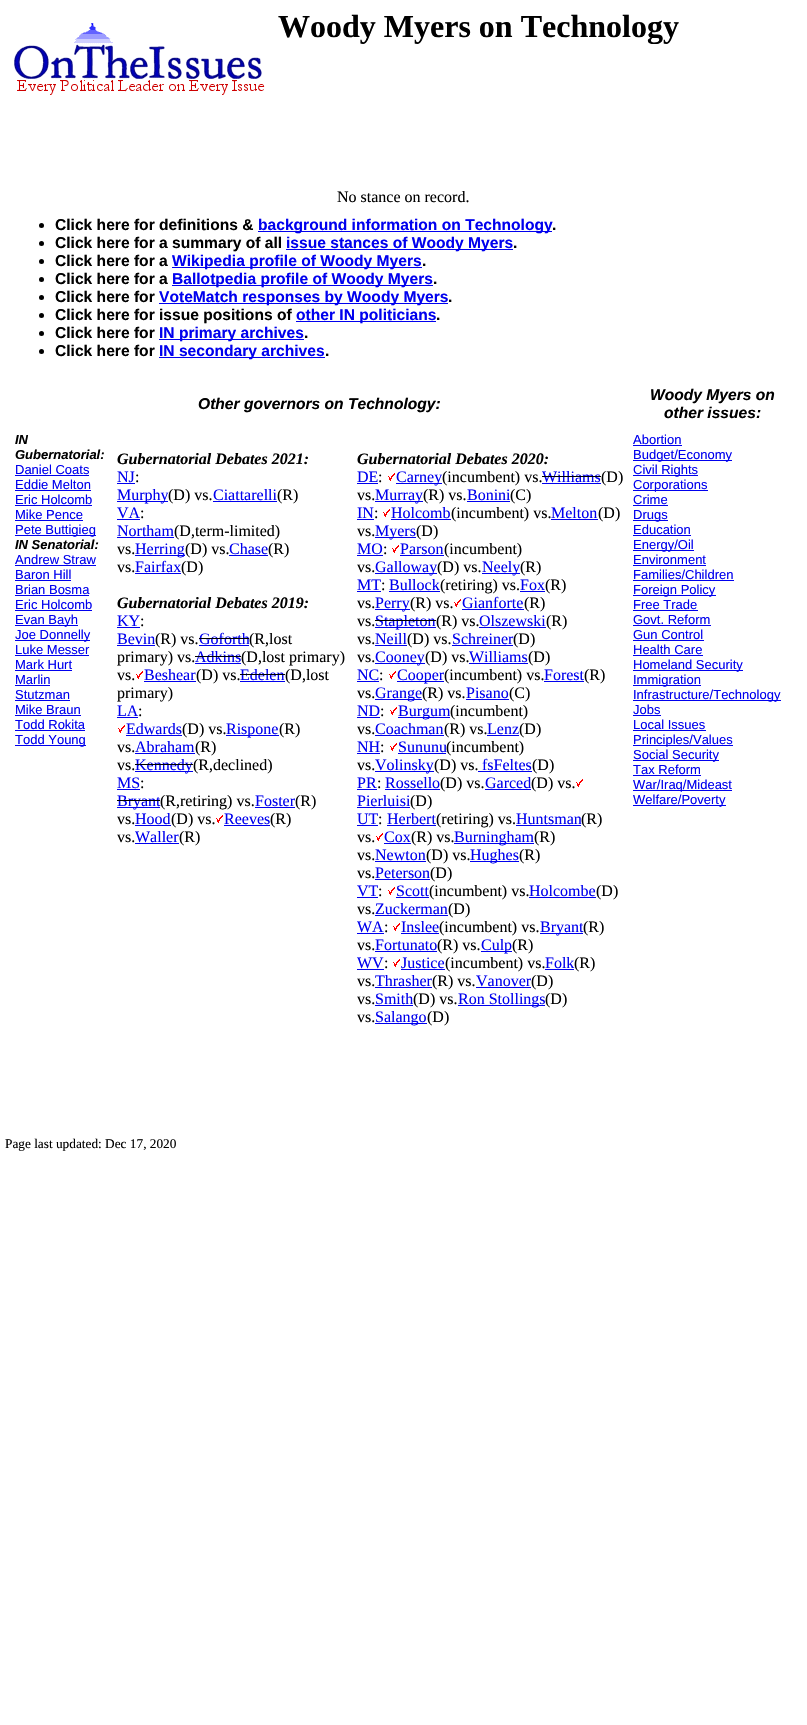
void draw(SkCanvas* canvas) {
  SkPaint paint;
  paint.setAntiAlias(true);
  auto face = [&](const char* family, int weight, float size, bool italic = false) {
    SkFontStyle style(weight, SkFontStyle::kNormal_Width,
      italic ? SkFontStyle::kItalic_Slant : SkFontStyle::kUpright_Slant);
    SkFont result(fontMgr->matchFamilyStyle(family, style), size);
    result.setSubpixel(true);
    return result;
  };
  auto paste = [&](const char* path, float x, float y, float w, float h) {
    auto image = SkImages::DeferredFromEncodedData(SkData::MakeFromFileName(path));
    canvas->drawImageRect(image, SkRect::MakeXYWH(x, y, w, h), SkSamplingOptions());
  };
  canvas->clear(0xffffffff);
  paste("img/1.png", 14, 23, 251, 72);
  paint.setColor(0xff000000);
  canvas->drawCircle(41.5f, 225.5f, 2.5f, paint);
  paint.setColor(0xff0000ee);
  canvas->drawRect(SkRect::MakeXYWH(258, 231, 294, 1), paint);
  paint.setColor(0xff000000);
  canvas->drawCircle(41.5f, 243.5f, 2.5f, paint);
  paint.setColor(0xff0000ee);
  canvas->drawRect(SkRect::MakeXYWH(286, 249, 227, 1), paint);
  paint.setColor(0xff000000);
  canvas->drawCircle(41.5f, 261.5f, 2.5f, paint);
  paint.setColor(0xff0000ee);
  canvas->drawRect(SkRect::MakeXYWH(172, 267, 250, 1), paint);
  paint.setColor(0xff000000);
  canvas->drawCircle(41.5f, 279.5f, 2.5f, paint);
  paint.setColor(0xff0000ee);
  canvas->drawRect(SkRect::MakeXYWH(172, 285, 261, 1), paint);
  paint.setColor(0xff000000);
  canvas->drawCircle(41.5f, 297.5f, 2.5f, paint);
  paint.setColor(0xff0000ee);
  canvas->drawRect(SkRect::MakeXYWH(159, 303, 289, 1), paint);
  paint.setColor(0xff000000);
  canvas->drawCircle(41.5f, 315.5f, 2.5f, paint);
  paint.setColor(0xff0000ee);
  canvas->drawRect(SkRect::MakeXYWH(296, 321, 140, 1), paint);
  paint.setColor(0xff000000);
  canvas->drawCircle(41.5f, 333.5f, 2.5f, paint);
  paint.setColor(0xff0000ee);
  canvas->drawRect(SkRect::MakeXYWH(159, 339, 145, 1), paint);
  paint.setColor(0xff000000);
  canvas->drawCircle(41.5f, 351.5f, 2.5f, paint);
  {
    const struct { float x, y, w, h; SkColor color; } items[] = {
      {159, 357, 166, 1, 0xff0000ee},
      {15, 475, 74, 1, 0xff0000ee},
      {15, 490, 76, 1, 0xff0000ee},
      {15, 505, 77, 1, 0xff0000ee},
      {15, 520, 68, 1, 0xff0000ee},
      {15, 535, 81, 1, 0xff0000ee},
      {15, 565, 81, 1, 0xff0000ee},
      {15, 580, 56, 1, 0xff0000ee},
      {15, 595, 74, 1, 0xff0000ee},
      {15, 610, 77, 1, 0xff0000ee},
      {15, 625, 63, 1, 0xff0000ee},
      {15, 640, 75, 1, 0xff0000ee},
      {15, 655, 74, 1, 0xff0000ee},
      {15, 670, 57, 1, 0xff0000ee},
      {15, 685, 35, 1, 0xff0000ee},
      {15, 700, 55, 1, 0xff0000ee},
      {15, 715, 66, 1, 0xff0000ee},
      {15, 730, 70, 1, 0xff0000ee},
      {15, 745, 71, 1, 0xff0000ee},
      {117, 483, 18, 1, 0xff0000ee},
      {117, 501, 51, 1, 0xff0000ee},
      {213, 501, 64, 1, 0xff0000ee},
      {117, 519, 23, 1, 0xff0000ee},
      {117, 537, 57, 1, 0xff0000ee},
      {135, 555, 50, 1, 0xff0000ee},
      {229, 555, 39, 1, 0xff0000ee},
      {135, 573, 46, 1, 0xff0000ee},
      {117, 627, 23, 1, 0xff0000ee},
      {117, 645, 38, 1, 0xff0000ee},
      {199, 645, 50, 1, 0xff0000ee},
      {195, 663, 46, 1, 0xff0000ee},
    };
    for (auto [x, y, w, h, color] : items) {
      paint.setColor(color);
      canvas->drawRect(SkRect::MakeXYWH(x, y, w, h), paint);
    }
  }
  paste("img/2.png", 136, 671, 7, 8);
  {
    const struct { float x, y, w, h; SkColor color; } items[] = {
      {144, 681, 52, 1, 0xff0000ee},
      {240, 681, 45, 1, 0xff0000ee},
      {117, 717, 21, 1, 0xff0000ee},
    };
    for (auto [x, y, w, h, color] : items) {
      paint.setColor(color);
      canvas->drawRect(SkRect::MakeXYWH(x, y, w, h), paint);
    }
  }
  paste("img/2.png", 118, 725, 7, 8);
  {
    const struct { float x, y, w, h; SkColor color; } items[] = {
      {126, 735, 56, 1, 0xff0000ee},
      {226, 735, 53, 1, 0xff0000ee},
      {135, 753, 60, 1, 0xff0000ee},
      {135, 771, 58, 1, 0xff0000ee},
      {117, 789, 23, 1, 0xff0000ee},
      {117, 807, 43, 1, 0xff0000ee},
      {255, 807, 40, 1, 0xff0000ee},
      {135, 825, 36, 1, 0xff0000ee},
    };
    for (auto [x, y, w, h, color] : items) {
      paint.setColor(color);
      canvas->drawRect(SkRect::MakeXYWH(x, y, w, h), paint);
    }
  }
  paste("img/2.png", 216, 815, 7, 8);
  {
    const struct { float x, y, w, h; SkColor color; } items[] = {
      {224, 825, 46, 1, 0xff0000ee},
      {135, 843, 44, 1, 0xff0000ee},
      {357, 483, 21, 1, 0xff0000ee},
    };
    for (auto [x, y, w, h, color] : items) {
      paint.setColor(color);
      canvas->drawRect(SkRect::MakeXYWH(x, y, w, h), paint);
    }
  }
  paste("img/2.png", 388, 473, 7, 8);
  {
    const struct { float x, y, w, h; SkColor color; } items[] = {
      {396, 483, 46, 1, 0xff0000ee},
      {542, 483, 59, 1, 0xff0000ee},
      {375, 501, 48, 1, 0xff0000ee},
      {467, 501, 43, 1, 0xff0000ee},
      {357, 519, 17, 1, 0xff0000ee},
    };
    for (auto [x, y, w, h, color] : items) {
      paint.setColor(color);
      canvas->drawRect(SkRect::MakeXYWH(x, y, w, h), paint);
    }
  }
  paste("img/2.png", 383, 509, 7, 8);
  {
    const struct { float x, y, w, h; SkColor color; } items[] = {
      {391, 519, 60, 1, 0xff0000ee},
      {551, 519, 47, 1, 0xff0000ee},
      {375, 537, 41, 1, 0xff0000ee},
      {357, 555, 26, 1, 0xff0000ee},
    };
    for (auto [x, y, w, h, color] : items) {
      paint.setColor(color);
      canvas->drawRect(SkRect::MakeXYWH(x, y, w, h), paint);
    }
  }
  paste("img/2.png", 392, 545, 7, 8);
  {
    const struct { float x, y, w, h; SkColor color; } items[] = {
      {400, 555, 44, 1, 0xff0000ee},
      {375, 573, 62, 1, 0xff0000ee},
      {482, 573, 38, 1, 0xff0000ee},
      {357, 591, 24, 1, 0xff0000ee},
      {389, 591, 51, 1, 0xff0000ee},
      {520, 591, 25, 1, 0xff0000ee},
      {375, 609, 35, 1, 0xff0000ee},
    };
    for (auto [x, y, w, h, color] : items) {
      paint.setColor(color);
      canvas->drawRect(SkRect::MakeXYWH(x, y, w, h), paint);
    }
  }
  paste("img/2.png", 454, 599, 7, 8);
  {
    const struct { float x, y, w, h; SkColor color; } items[] = {
      {462, 609, 62, 1, 0xff0000ee},
      {375, 627, 61, 1, 0xff0000ee},
      {479, 627, 67, 1, 0xff0000ee},
      {375, 645, 32, 1, 0xff0000ee},
      {452, 645, 61, 1, 0xff0000ee},
      {375, 663, 50, 1, 0xff0000ee},
      {469, 663, 59, 1, 0xff0000ee},
      {357, 681, 22, 1, 0xff0000ee},
    };
    for (auto [x, y, w, h, color] : items) {
      paint.setColor(color);
      canvas->drawRect(SkRect::MakeXYWH(x, y, w, h), paint);
    }
  }
  paste("img/2.png", 389, 671, 7, 8);
  {
    const struct { float x, y, w, h; SkColor color; } items[] = {
      {397, 681, 47, 1, 0xff0000ee},
      {544, 681, 40, 1, 0xff0000ee},
      {375, 699, 47, 1, 0xff0000ee},
      {466, 699, 43, 1, 0xff0000ee},
      {357, 717, 23, 1, 0xff0000ee},
    };
    for (auto [x, y, w, h, color] : items) {
      paint.setColor(color);
      canvas->drawRect(SkRect::MakeXYWH(x, y, w, h), paint);
    }
  }
  paste("img/2.png", 390, 707, 7, 8);
  {
    const struct { float x, y, w, h; SkColor color; } items[] = {
      {398, 717, 52, 1, 0xff0000ee},
      {375, 735, 69, 1, 0xff0000ee},
      {487, 735, 32, 1, 0xff0000ee},
      {357, 753, 23, 1, 0xff0000ee},
    };
    for (auto [x, y, w, h, color] : items) {
      paint.setColor(color);
      canvas->drawRect(SkRect::MakeXYWH(x, y, w, h), paint);
    }
  }
  paste("img/2.png", 390, 743, 7, 8);
  {
    const struct { float x, y, w, h; SkColor color; } items[] = {
      {398, 753, 48, 1, 0xff0000ee},
      {375, 771, 59, 1, 0xff0000ee},
      {478, 771, 54, 1, 0xff0000ee},
      {357, 789, 20, 1, 0xff0000ee},
      {385, 789, 55, 1, 0xff0000ee},
      {485, 789, 46, 1, 0xff0000ee},
    };
    for (auto [x, y, w, h, color] : items) {
      paint.setColor(color);
      canvas->drawRect(SkRect::MakeXYWH(x, y, w, h), paint);
    }
  }
  paste("img/2.png", 576, 779, 7, 8);
  {
    const struct { float x, y, w, h; SkColor color; } items[] = {
      {357, 807, 53, 1, 0xff0000ee},
      {357, 825, 21, 1, 0xff0000ee},
      {387, 825, 49, 1, 0xff0000ee},
      {516, 825, 65, 1, 0xff0000ee},
    };
    for (auto [x, y, w, h, color] : items) {
      paint.setColor(color);
      canvas->drawRect(SkRect::MakeXYWH(x, y, w, h), paint);
    }
  }
  paste("img/2.png", 376, 833, 7, 8);
  {
    const struct { float x, y, w, h; SkColor color; } items[] = {
      {384, 843, 27, 1, 0xff0000ee},
      {454, 843, 80, 1, 0xff0000ee},
      {375, 861, 51, 1, 0xff0000ee},
      {470, 861, 49, 1, 0xff0000ee},
      {375, 879, 55, 1, 0xff0000ee},
      {357, 897, 21, 1, 0xff0000ee},
    };
    for (auto [x, y, w, h, color] : items) {
      paint.setColor(color);
      canvas->drawRect(SkRect::MakeXYWH(x, y, w, h), paint);
    }
  }
  paste("img/2.png", 388, 887, 7, 8);
  {
    const struct { float x, y, w, h; SkColor color; } items[] = {
      {396, 897, 33, 1, 0xff0000ee},
      {529, 897, 67, 1, 0xff0000ee},
      {375, 915, 73, 1, 0xff0000ee},
      {357, 933, 27, 1, 0xff0000ee},
    };
    for (auto [x, y, w, h, color] : items) {
      paint.setColor(color);
      canvas->drawRect(SkRect::MakeXYWH(x, y, w, h), paint);
    }
  }
  paste("img/2.png", 393, 923, 7, 8);
  {
    const struct { float x, y, w, h; SkColor color; } items[] = {
      {401, 933, 38, 1, 0xff0000ee},
      {540, 933, 43, 1, 0xff0000ee},
      {375, 951, 62, 1, 0xff0000ee},
      {481, 951, 31, 1, 0xff0000ee},
      {357, 969, 27, 1, 0xff0000ee},
    };
    for (auto [x, y, w, h, color] : items) {
      paint.setColor(color);
      canvas->drawRect(SkRect::MakeXYWH(x, y, w, h), paint);
    }
  }
  paste("img/2.png", 393, 959, 7, 8);
  {
    const struct { float x, y, w, h; SkColor color; } items[] = {
      {401, 969, 44, 1, 0xff0000ee},
      {545, 969, 29, 1, 0xff0000ee},
      {375, 987, 57, 1, 0xff0000ee},
      {476, 987, 55, 1, 0xff0000ee},
      {375, 1005, 38, 1, 0xff0000ee},
      {458, 1005, 87, 1, 0xff0000ee},
      {375, 1023, 52, 1, 0xff0000ee},
      {633, 445, 49, 1, 0xff0000ee},
      {633, 460, 99, 1, 0xff0000ee},
      {633, 475, 65, 1, 0xff0000ee},
      {633, 490, 75, 1, 0xff0000ee},
      {633, 505, 35, 1, 0xff0000ee},
      {633, 520, 35, 1, 0xff0000ee},
      {633, 535, 58, 1, 0xff0000ee},
      {633, 550, 61, 1, 0xff0000ee},
      {633, 565, 73, 1, 0xff0000ee},
      {633, 580, 101, 1, 0xff0000ee},
      {633, 595, 83, 1, 0xff0000ee},
      {633, 610, 65, 1, 0xff0000ee},
      {633, 625, 78, 1, 0xff0000ee},
      {633, 640, 71, 1, 0xff0000ee},
      {633, 655, 70, 1, 0xff0000ee},
      {633, 670, 110, 1, 0xff0000ee},
      {633, 685, 68, 1, 0xff0000ee},
      {633, 700, 148, 1, 0xff0000ee},
      {633, 715, 28, 1, 0xff0000ee},
      {633, 730, 73, 1, 0xff0000ee},
      {633, 745, 100, 1, 0xff0000ee},
      {633, 760, 86, 1, 0xff0000ee},
      {633, 775, 68, 1, 0xff0000ee},
      {633, 790, 99, 1, 0xff0000ee},
      {633, 805, 93, 1, 0xff0000ee},
    };
    for (auto [x, y, w, h, color] : items) {
      paint.setColor(color);
      canvas->drawRect(SkRect::MakeXYWH(x, y, w, h), paint);
    }
  }
  auto f0 = face("Liberation Serif", 700, 32);
  paint.setColor(0xff000000);
  canvas->drawString("Woody Myers on Technology", 278, 37, f0, paint);
  auto f1 = face("Liberation Serif", 400, 16);
  canvas->drawString("No stance on record.", 337, 202, f1, paint);
  auto f2 = face("Liberation Sans", 700, 15.6f);
  canvas->drawString("Click here for definitions &", 55, 230, f2, paint);
  paint.setColor(0xff0000ee);
  canvas->drawString("background information on Technology", 258, 230, f2, paint);
  paint.setColor(0xff000000);
  canvas->drawString(".", 552, 230, f2, paint);
  canvas->drawString("Click here for a summary of all", 55, 248, f2, paint);
  paint.setColor(0xff0000ee);
  canvas->drawString("issue stances of Woody Myers", 286, 248, f2, paint);
  paint.setColor(0xff000000);
  canvas->drawString(".", 513, 248, f2, paint);
  canvas->drawString("Click here for a", 55, 266, f2, paint);
  paint.setColor(0xff0000ee);
  canvas->drawString("Wikipedia profile of Woody Myers", 172, 266, f2, paint);
  paint.setColor(0xff000000);
  canvas->drawString(".", 422, 266, f2, paint);
  canvas->drawString("Click here for a", 55, 284, f2, paint);
  paint.setColor(0xff0000ee);
  canvas->drawString("Ballotpedia profile of Woody Myers", 172, 284, f2, paint);
  paint.setColor(0xff000000);
  canvas->drawString(".", 433, 284, f2, paint);
  canvas->drawString("Click here for", 55, 302, f2, paint);
  paint.setColor(0xff0000ee);
  canvas->drawString("VoteMatch responses by Woody Myers", 159, 302, f2, paint);
  paint.setColor(0xff000000);
  canvas->drawString(".", 448, 302, f2, paint);
  canvas->drawString("Click here for issue positions of", 55, 320, f2, paint);
  paint.setColor(0xff0000ee);
  canvas->drawString("other IN politicians", 296, 320, f2, paint);
  paint.setColor(0xff000000);
  canvas->drawString(".", 436, 320, f2, paint);
  canvas->drawString("Click here for", 55, 338, f2, paint);
  paint.setColor(0xff0000ee);
  canvas->drawString("IN primary archives", 159, 338, f2, paint);
  paint.setColor(0xff000000);
  canvas->drawString(".", 304, 338, f2, paint);
  canvas->drawString("Click here for", 55, 356, f2, paint);
  paint.setColor(0xff0000ee);
  canvas->drawString("IN secondary archives", 159, 356, f2, paint);
  paint.setColor(0xff000000);
  canvas->drawString(".", 325, 356, f2, paint);
  auto f3 = face("Liberation Sans", 700, 15.6f, true);
  {
    const struct { const char* s; float x, y; } items[] = {
      {"Other governors on Technology:", 198, 409},
      {"Woody Myers on", 650, 400},
      {"other issues:", 664, 418},
    };
    for (auto [s, x, y] : items) {
      canvas->drawString(s, x, y, f3, paint);
    }
  }
  auto f4 = face("Liberation Sans", 700, 13, true);
  canvas->drawString("IN", 15, 444, f4, paint);
  canvas->drawString("Gubernatorial:", 15, 459, f4, paint);
  auto f5 = face("Liberation Sans", 400, 13);
  paint.setColor(0xff0000ee);
  {
    const struct { const char* s; float x, y; } items[] = {
      {"Daniel Coats", 15, 474},
      {"Eddie Melton", 15, 489},
      {"Eric Holcomb", 15, 504},
      {"Mike Pence", 15, 519},
      {"Pete Buttigieg", 15, 534},
    };
    for (auto [s, x, y] : items) {
      canvas->drawString(s, x, y, f5, paint);
    }
  }
  paint.setColor(0xff000000);
  canvas->drawString("IN Senatorial:", 15, 549, f4, paint);
  paint.setColor(0xff0000ee);
  {
    const struct { const char* s; float x, y; } items[] = {
      {"Andrew Straw", 15, 564},
      {"Baron Hill", 15, 579},
      {"Brian Bosma", 15, 594},
      {"Eric Holcomb", 15, 609},
      {"Evan Bayh", 15, 624},
      {"Joe Donnelly", 15, 639},
      {"Luke Messer", 15, 654},
      {"Mark Hurt", 15, 669},
      {"Marlin", 15, 684},
      {"Stutzman", 15, 699},
      {"Mike Braun", 15, 714},
      {"Todd Rokita", 15, 729},
      {"Todd Young", 15, 744},
    };
    for (auto [s, x, y] : items) {
      canvas->drawString(s, x, y, f5, paint);
    }
  }
  auto f6 = face("Liberation Serif", 700, 16, true);
  paint.setColor(0xff000000);
  canvas->drawString("Gubernatorial Debates 2021:", 117, 464, f6, paint);
  paint.setColor(0xff0000ee);
  canvas->drawString("NJ", 117, 482, f1, paint);
  paint.setColor(0xff000000);
  canvas->drawString(":", 135, 482, f1, paint);
  paint.setColor(0xff0000ee);
  canvas->drawString("Murphy", 117, 500, f1, paint);
  paint.setColor(0xff000000);
  canvas->drawString("(D) vs.", 168, 500, f1, paint);
  paint.setColor(0xff0000ee);
  canvas->drawString("Ciattarelli", 213, 500, f1, paint);
  paint.setColor(0xff000000);
  canvas->drawString("(R)", 277, 500, f1, paint);
  paint.setColor(0xff0000ee);
  canvas->drawString("VA", 117, 518, f1, paint);
  paint.setColor(0xff000000);
  canvas->drawString(":", 140, 518, f1, paint);
  paint.setColor(0xff0000ee);
  canvas->drawString("Northam", 117, 536, f1, paint);
  paint.setColor(0xff000000);
  canvas->drawString("(D,term-limited)", 174, 536, f1, paint);
  canvas->drawString("vs.", 117, 554, f1, paint);
  paint.setColor(0xff0000ee);
  canvas->drawString("Herring", 135, 554, f1, paint);
  paint.setColor(0xff000000);
  canvas->drawString("(D) vs.", 185, 554, f1, paint);
  paint.setColor(0xff0000ee);
  canvas->drawString("Chase", 229, 554, f1, paint);
  paint.setColor(0xff000000);
  canvas->drawString("(R)", 268, 554, f1, paint);
  canvas->drawString("vs.", 117, 572, f1, paint);
  paint.setColor(0xff0000ee);
  canvas->drawString("Fairfax", 135, 572, f1, paint);
  paint.setColor(0xff000000);
  canvas->drawString("(D)", 181, 572, f1, paint);
  canvas->drawString("Gubernatorial Debates 2019:", 117, 608, f6, paint);
  paint.setColor(0xff0000ee);
  canvas->drawString("KY", 117, 626, f1, paint);
  paint.setColor(0xff000000);
  canvas->drawString(":", 140, 626, f1, paint);
  paint.setColor(0xff0000ee);
  canvas->drawString("Bevin", 117, 644, f1, paint);
  paint.setColor(0xff000000);
  canvas->drawString("(R) vs.", 155, 644, f1, paint);
  paint.setColor(0xff0000ee);
  canvas->drawString("Goforth", 199, 644, f1, paint);
  paint.setColor(0xff000000);
  canvas->drawRect(SkRect::MakeXYWH(199, 638, 50, 1), paint);
  canvas->drawString("(R,lost", 249, 644, f1, paint);
  canvas->drawString("primary) vs.", 117, 662, f1, paint);
  paint.setColor(0xff0000ee);
  canvas->drawString("Adkins", 195, 662, f1, paint);
  paint.setColor(0xff000000);
  canvas->drawRect(SkRect::MakeXYWH(195, 656, 46, 1), paint);
  canvas->drawString("(D,lost primary)", 241, 662, f1, paint);
  canvas->drawString("vs.", 117, 680, f1, paint);
  paint.setColor(0xff0000ee);
  canvas->drawString("Beshear", 144, 680, f1, paint);
  paint.setColor(0xff000000);
  canvas->drawString("(D) vs.", 196, 680, f1, paint);
  paint.setColor(0xff0000ee);
  canvas->drawString("Edelen", 240, 680, f1, paint);
  paint.setColor(0xff000000);
  canvas->drawRect(SkRect::MakeXYWH(240, 674, 45, 1), paint);
  canvas->drawString("(D,lost", 285, 680, f1, paint);
  canvas->drawString("primary)", 117, 698, f1, paint);
  paint.setColor(0xff0000ee);
  canvas->drawString("LA", 117, 716, f1, paint);
  paint.setColor(0xff000000);
  canvas->drawString(":", 138, 716, f1, paint);
  paint.setColor(0xff0000ee);
  canvas->drawString("Edwards", 126, 734, f1, paint);
  paint.setColor(0xff000000);
  canvas->drawString("(D) vs.", 182, 734, f1, paint);
  paint.setColor(0xff0000ee);
  canvas->drawString("Rispone", 226, 734, f1, paint);
  paint.setColor(0xff000000);
  canvas->drawString("(R)", 279, 734, f1, paint);
  canvas->drawString("vs.", 117, 752, f1, paint);
  paint.setColor(0xff0000ee);
  canvas->drawString("Abraham", 135, 752, f1, paint);
  paint.setColor(0xff000000);
  canvas->drawString("(R)", 195, 752, f1, paint);
  canvas->drawString("vs.", 117, 770, f1, paint);
  paint.setColor(0xff0000ee);
  canvas->drawString("Kennedy", 135, 770, f1, paint);
  paint.setColor(0xff000000);
  canvas->drawRect(SkRect::MakeXYWH(135, 764, 58, 1), paint);
  canvas->drawString("(R,declined)", 193, 770, f1, paint);
  paint.setColor(0xff0000ee);
  canvas->drawString("MS", 117, 788, f1, paint);
  paint.setColor(0xff000000);
  canvas->drawString(":", 140, 788, f1, paint);
  paint.setColor(0xff0000ee);
  canvas->drawString("Bryant", 117, 806, f1, paint);
  paint.setColor(0xff000000);
  canvas->drawRect(SkRect::MakeXYWH(117, 800, 43, 1), paint);
  canvas->drawString("(R,retiring) vs.", 160, 806, f1, paint);
  paint.setColor(0xff0000ee);
  canvas->drawString("Foster", 255, 806, f1, paint);
  paint.setColor(0xff000000);
  canvas->drawString("(R)", 295, 806, f1, paint);
  canvas->drawString("vs.", 117, 824, f1, paint);
  paint.setColor(0xff0000ee);
  canvas->drawString("Hood", 135, 824, f1, paint);
  paint.setColor(0xff000000);
  canvas->drawString("(D) vs.", 171, 824, f1, paint);
  paint.setColor(0xff0000ee);
  canvas->drawString("Reeves", 224, 824, f1, paint);
  paint.setColor(0xff000000);
  canvas->drawString("(R)", 270, 824, f1, paint);
  canvas->drawString("vs.", 117, 842, f1, paint);
  paint.setColor(0xff0000ee);
  canvas->drawString("Waller", 135, 842, f1, paint);
  paint.setColor(0xff000000);
  canvas->drawString("(R)", 179, 842, f1, paint);
  canvas->drawString("Gubernatorial Debates 2020:", 357, 464, f6, paint);
  paint.setColor(0xff0000ee);
  canvas->drawString("DE", 357, 482, f1, paint);
  paint.setColor(0xff000000);
  canvas->drawString(":", 378, 482, f1, paint);
  paint.setColor(0xff0000ee);
  canvas->drawString("Carney", 396, 482, f1, paint);
  paint.setColor(0xff000000);
  canvas->drawString("(incumbent) vs.", 442, 482, f1, paint);
  paint.setColor(0xff0000ee);
  canvas->drawString("Williams", 542, 482, f1, paint);
  paint.setColor(0xff000000);
  canvas->drawRect(SkRect::MakeXYWH(542, 476, 59, 1), paint);
  canvas->drawString("(D)", 601, 482, f1, paint);
  canvas->drawString("vs.", 357, 500, f1, paint);
  paint.setColor(0xff0000ee);
  canvas->drawString("Murray", 375, 500, f1, paint);
  paint.setColor(0xff000000);
  canvas->drawString("(R) vs.", 423, 500, f1, paint);
  paint.setColor(0xff0000ee);
  canvas->drawString("Bonini", 467, 500, f1, paint);
  paint.setColor(0xff000000);
  canvas->drawString("(C)", 510, 500, f1, paint);
  paint.setColor(0xff0000ee);
  canvas->drawString("IN", 357, 518, f1, paint);
  paint.setColor(0xff000000);
  canvas->drawString(":", 374, 518, f1, paint);
  paint.setColor(0xff0000ee);
  canvas->drawString("Holcomb", 391, 518, f1, paint);
  paint.setColor(0xff000000);
  canvas->drawString("(incumbent) vs.", 451, 518, f1, paint);
  paint.setColor(0xff0000ee);
  canvas->drawString("Melton", 551, 518, f1, paint);
  paint.setColor(0xff000000);
  canvas->drawString("(D)", 598, 518, f1, paint);
  canvas->drawString("vs.", 357, 536, f1, paint);
  paint.setColor(0xff0000ee);
  canvas->drawString("Myers", 375, 536, f1, paint);
  paint.setColor(0xff000000);
  canvas->drawString("(D)", 416, 536, f1, paint);
  paint.setColor(0xff0000ee);
  canvas->drawString("MO", 357, 554, f1, paint);
  paint.setColor(0xff000000);
  canvas->drawString(":", 383, 554, f1, paint);
  paint.setColor(0xff0000ee);
  canvas->drawString("Parson", 400, 554, f1, paint);
  paint.setColor(0xff000000);
  canvas->drawString("(incumbent)", 444, 554, f1, paint);
  canvas->drawString("vs.", 357, 572, f1, paint);
  paint.setColor(0xff0000ee);
  canvas->drawString("Galloway", 375, 572, f1, paint);
  paint.setColor(0xff000000);
  canvas->drawString("(D) vs.", 437, 572, f1, paint);
  paint.setColor(0xff0000ee);
  canvas->drawString("Neely", 482, 572, f1, paint);
  paint.setColor(0xff000000);
  canvas->drawString("(R)", 520, 572, f1, paint);
  paint.setColor(0xff0000ee);
  canvas->drawString("MT", 357, 590, f1, paint);
  paint.setColor(0xff000000);
  canvas->drawString(":", 381, 590, f1, paint);
  paint.setColor(0xff0000ee);
  canvas->drawString("Bullock", 389, 590, f1, paint);
  paint.setColor(0xff000000);
  canvas->drawString("(retiring) vs.", 440, 590, f1, paint);
  paint.setColor(0xff0000ee);
  canvas->drawString("Fox", 520, 590, f1, paint);
  paint.setColor(0xff000000);
  canvas->drawString("(R)", 545, 590, f1, paint);
  canvas->drawString("vs.", 357, 608, f1, paint);
  paint.setColor(0xff0000ee);
  canvas->drawString("Perry", 375, 608, f1, paint);
  paint.setColor(0xff000000);
  canvas->drawString("(R) vs.", 410, 608, f1, paint);
  paint.setColor(0xff0000ee);
  canvas->drawString("Gianforte", 462, 608, f1, paint);
  paint.setColor(0xff000000);
  canvas->drawString("(R)", 524, 608, f1, paint);
  canvas->drawString("vs.", 357, 626, f1, paint);
  paint.setColor(0xff0000ee);
  canvas->drawString("Stapleton", 375, 626, f1, paint);
  paint.setColor(0xff000000);
  canvas->drawRect(SkRect::MakeXYWH(375, 620, 61, 1), paint);
  canvas->drawString("(R) vs.", 436, 626, f1, paint);
  paint.setColor(0xff0000ee);
  canvas->drawString("Olszewski", 479, 626, f1, paint);
  paint.setColor(0xff000000);
  canvas->drawString("(R)", 546, 626, f1, paint);
  canvas->drawString("vs.", 357, 644, f1, paint);
  paint.setColor(0xff0000ee);
  canvas->drawString("Neill", 375, 644, f1, paint);
  paint.setColor(0xff000000);
  canvas->drawString("(D) vs.", 407, 644, f1, paint);
  paint.setColor(0xff0000ee);
  canvas->drawString("Schreiner", 452, 644, f1, paint);
  paint.setColor(0xff000000);
  canvas->drawString("(D)", 513, 644, f1, paint);
  canvas->drawString("vs.", 357, 662, f1, paint);
  paint.setColor(0xff0000ee);
  canvas->drawString("Cooney", 375, 662, f1, paint);
  paint.setColor(0xff000000);
  canvas->drawString("(D) vs.", 425, 662, f1, paint);
  paint.setColor(0xff0000ee);
  canvas->drawString("Williams", 469, 662, f1, paint);
  paint.setColor(0xff000000);
  canvas->drawString("(D)", 528, 662, f1, paint);
  paint.setColor(0xff0000ee);
  canvas->drawString("NC", 357, 680, f1, paint);
  paint.setColor(0xff000000);
  canvas->drawString(":", 379, 680, f1, paint);
  paint.setColor(0xff0000ee);
  canvas->drawString("Cooper", 397, 680, f1, paint);
  paint.setColor(0xff000000);
  canvas->drawString("(incumbent) vs.", 444, 680, f1, paint);
  paint.setColor(0xff0000ee);
  canvas->drawString("Forest", 544, 680, f1, paint);
  paint.setColor(0xff000000);
  canvas->drawString("(R)", 584, 680, f1, paint);
  canvas->drawString("vs.", 357, 698, f1, paint);
  paint.setColor(0xff0000ee);
  canvas->drawString("Grange", 375, 698, f1, paint);
  paint.setColor(0xff000000);
  canvas->drawString("(R) vs.", 422, 698, f1, paint);
  paint.setColor(0xff0000ee);
  canvas->drawString("Pisano", 466, 698, f1, paint);
  paint.setColor(0xff000000);
  canvas->drawString("(C)", 509, 698, f1, paint);
  paint.setColor(0xff0000ee);
  canvas->drawString("ND", 357, 716, f1, paint);
  paint.setColor(0xff000000);
  canvas->drawString(":", 380, 716, f1, paint);
  paint.setColor(0xff0000ee);
  canvas->drawString("Burgum", 398, 716, f1, paint);
  paint.setColor(0xff000000);
  canvas->drawString("(incumbent)", 450, 716, f1, paint);
  canvas->drawString("vs.", 357, 734, f1, paint);
  paint.setColor(0xff0000ee);
  canvas->drawString("Coachman", 375, 734, f1, paint);
  paint.setColor(0xff000000);
  canvas->drawString("(R) vs.", 444, 734, f1, paint);
  paint.setColor(0xff0000ee);
  canvas->drawString("Lenz", 487, 734, f1, paint);
  paint.setColor(0xff000000);
  canvas->drawString("(D)", 519, 734, f1, paint);
  paint.setColor(0xff0000ee);
  canvas->drawString("NH", 357, 752, f1, paint);
  paint.setColor(0xff000000);
  canvas->drawString(":", 380, 752, f1, paint);
  paint.setColor(0xff0000ee);
  canvas->drawString("Sununu", 398, 752, f1, paint);
  paint.setColor(0xff000000);
  canvas->drawString("(incumbent)", 446, 752, f1, paint);
  canvas->drawString("vs.", 357, 770, f1, paint);
  paint.setColor(0xff0000ee);
  canvas->drawString("Volinsky", 375, 770, f1, paint);
  paint.setColor(0xff000000);
  canvas->drawString("(D) vs.", 434, 770, f1, paint);
  paint.setColor(0xff0000ee);
  canvas->drawString("fsFeltes", 482, 770, f1, paint);
  paint.setColor(0xff000000);
  canvas->drawString("(D)", 532, 770, f1, paint);
  paint.setColor(0xff0000ee);
  canvas->drawString("PR", 357, 788, f1, paint);
  paint.setColor(0xff000000);
  canvas->drawString(":", 377, 788, f1, paint);
  paint.setColor(0xff0000ee);
  canvas->drawString("Rossello", 385, 788, f1, paint);
  paint.setColor(0xff000000);
  canvas->drawString("(D) vs.", 440, 788, f1, paint);
  paint.setColor(0xff0000ee);
  canvas->drawString("Garced", 485, 788, f1, paint);
  paint.setColor(0xff000000);
  canvas->drawString("(D) vs.", 531, 788, f1, paint);
  paint.setColor(0xff0000ee);
  canvas->drawString("Pierluisi", 357, 806, f1, paint);
  paint.setColor(0xff000000);
  canvas->drawString("(D)", 410, 806, f1, paint);
  paint.setColor(0xff0000ee);
  canvas->drawString("UT", 357, 824, f1, paint);
  paint.setColor(0xff000000);
  canvas->drawString(":", 378, 824, f1, paint);
  paint.setColor(0xff0000ee);
  canvas->drawString("Herbert", 387, 824, f1, paint);
  paint.setColor(0xff000000);
  canvas->drawString("(retiring) vs.", 436, 824, f1, paint);
  paint.setColor(0xff0000ee);
  canvas->drawString("Huntsman", 516, 824, f1, paint);
  paint.setColor(0xff000000);
  canvas->drawString("(R)", 581, 824, f1, paint);
  canvas->drawString("vs.", 357, 842, f1, paint);
  paint.setColor(0xff0000ee);
  canvas->drawString("Cox", 384, 842, f1, paint);
  paint.setColor(0xff000000);
  canvas->drawString("(R) vs.", 411, 842, f1, paint);
  paint.setColor(0xff0000ee);
  canvas->drawString("Burningham", 454, 842, f1, paint);
  paint.setColor(0xff000000);
  canvas->drawString("(R)", 534, 842, f1, paint);
  canvas->drawString("vs.", 357, 860, f1, paint);
  paint.setColor(0xff0000ee);
  canvas->drawString("Newton", 375, 860, f1, paint);
  paint.setColor(0xff000000);
  canvas->drawString("(D) vs.", 426, 860, f1, paint);
  paint.setColor(0xff0000ee);
  canvas->drawString("Hughes", 470, 860, f1, paint);
  paint.setColor(0xff000000);
  canvas->drawString("(R)", 519, 860, f1, paint);
  canvas->drawString("vs.", 357, 878, f1, paint);
  paint.setColor(0xff0000ee);
  canvas->drawString("Peterson", 375, 878, f1, paint);
  paint.setColor(0xff000000);
  canvas->drawString("(D)", 430, 878, f1, paint);
  paint.setColor(0xff0000ee);
  canvas->drawString("VT", 357, 896, f1, paint);
  paint.setColor(0xff000000);
  canvas->drawString(":", 378, 896, f1, paint);
  paint.setColor(0xff0000ee);
  canvas->drawString("Scott", 396, 896, f1, paint);
  paint.setColor(0xff000000);
  canvas->drawString("(incumbent) vs.", 429, 896, f1, paint);
  paint.setColor(0xff0000ee);
  canvas->drawString("Holcombe", 529, 896, f1, paint);
  paint.setColor(0xff000000);
  canvas->drawString("(D)", 596, 896, f1, paint);
  canvas->drawString("vs.", 357, 914, f1, paint);
  paint.setColor(0xff0000ee);
  canvas->drawString("Zuckerman", 375, 914, f1, paint);
  paint.setColor(0xff000000);
  canvas->drawString("(D)", 448, 914, f1, paint);
  paint.setColor(0xff0000ee);
  canvas->drawString("WA", 357, 932, f1, paint);
  paint.setColor(0xff000000);
  canvas->drawString(":", 384, 932, f1, paint);
  paint.setColor(0xff0000ee);
  canvas->drawString("Inslee", 401, 932, f1, paint);
  paint.setColor(0xff000000);
  canvas->drawString("(incumbent) vs.", 439, 932, f1, paint);
  paint.setColor(0xff0000ee);
  canvas->drawString("Bryant", 540, 932, f1, paint);
  paint.setColor(0xff000000);
  canvas->drawString("(R)", 583, 932, f1, paint);
  canvas->drawString("vs.", 357, 950, f1, paint);
  paint.setColor(0xff0000ee);
  canvas->drawString("Fortunato", 375, 950, f1, paint);
  paint.setColor(0xff000000);
  canvas->drawString("(R) vs.", 437, 950, f1, paint);
  paint.setColor(0xff0000ee);
  canvas->drawString("Culp", 481, 950, f1, paint);
  paint.setColor(0xff000000);
  canvas->drawString("(R)", 512, 950, f1, paint);
  paint.setColor(0xff0000ee);
  canvas->drawString("WV", 357, 968, f1, paint);
  paint.setColor(0xff000000);
  canvas->drawString(":", 384, 968, f1, paint);
  paint.setColor(0xff0000ee);
  canvas->drawString("Justice", 401, 968, f1, paint);
  paint.setColor(0xff000000);
  canvas->drawString("(incumbent) vs.", 445, 968, f1, paint);
  paint.setColor(0xff0000ee);
  canvas->drawString("Folk", 545, 968, f1, paint);
  paint.setColor(0xff000000);
  canvas->drawString("(R)", 574, 968, f1, paint);
  canvas->drawString("vs.", 357, 986, f1, paint);
  paint.setColor(0xff0000ee);
  canvas->drawString("Thrasher", 375, 986, f1, paint);
  paint.setColor(0xff000000);
  canvas->drawString("(R) vs.", 432, 986, f1, paint);
  paint.setColor(0xff0000ee);
  canvas->drawString("Vanover", 476, 986, f1, paint);
  paint.setColor(0xff000000);
  canvas->drawString("(D)", 531, 986, f1, paint);
  canvas->drawString("vs.", 357, 1004, f1, paint);
  paint.setColor(0xff0000ee);
  canvas->drawString("Smith", 375, 1004, f1, paint);
  paint.setColor(0xff000000);
  canvas->drawString("(D) vs.", 413, 1004, f1, paint);
  paint.setColor(0xff0000ee);
  canvas->drawString("Ron Stollings", 458, 1004, f1, paint);
  paint.setColor(0xff000000);
  canvas->drawString("(D)", 545, 1004, f1, paint);
  canvas->drawString("vs.", 357, 1022, f1, paint);
  paint.setColor(0xff0000ee);
  canvas->drawString("Salango", 375, 1022, f1, paint);
  paint.setColor(0xff000000);
  canvas->drawString("(D)", 427, 1022, f1, paint);
  paint.setColor(0xff0000ee);
  {
    const struct { const char* s; float x, y; } items[] = {
      {"Abortion", 633, 444},
      {"Budget/Economy", 633, 459},
      {"Civil Rights", 633, 474},
      {"Corporations", 633, 489},
      {"Crime", 633, 504},
      {"Drugs", 633, 519},
      {"Education", 633, 534},
      {"Energy/Oil", 633, 549},
      {"Environment", 633, 564},
      {"Families/Children", 633, 579},
      {"Foreign Policy", 633, 594},
      {"Free Trade", 633, 609},
      {"Govt. Reform", 633, 624},
      {"Gun Control", 633, 639},
      {"Health Care", 633, 654},
      {"Homeland Security", 633, 669},
      {"Immigration", 633, 684},
      {"Infrastructure/Technology", 633, 699},
      {"Jobs", 633, 714},
      {"Local Issues", 633, 729},
      {"Principles/Values", 633, 744},
      {"Social Security", 633, 759},
      {"Tax Reform", 633, 774},
      {"War/Iraq/Mideast", 633, 789},
      {"Welfare/Poverty", 633, 804},
    };
    for (auto [s, x, y] : items) {
      canvas->drawString(s, x, y, f5, paint);
    }
  }
  auto f7 = face("Liberation Serif", 400, 13.3f);
  paint.setColor(0xff000000);
  canvas->drawString("Page last updated: Dec 17, 2020", 5, 1148, f7, paint);
}
